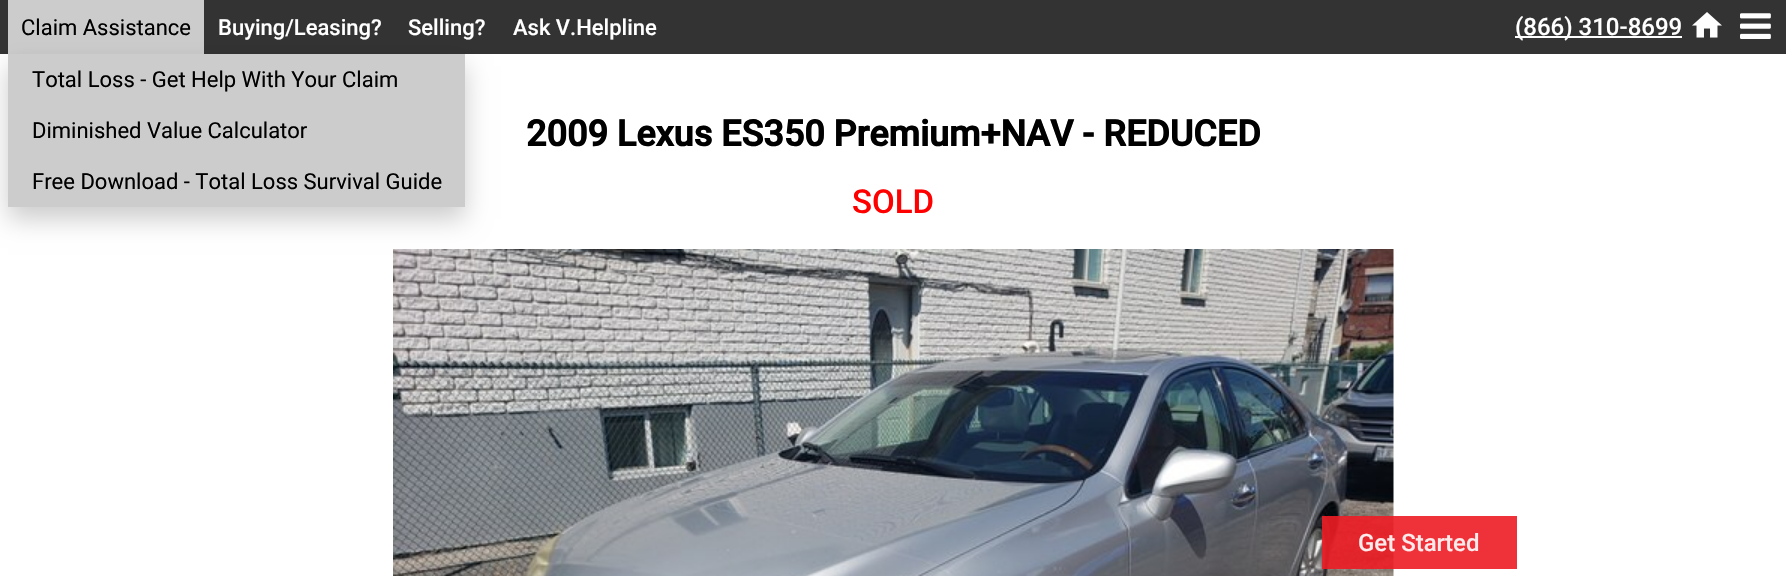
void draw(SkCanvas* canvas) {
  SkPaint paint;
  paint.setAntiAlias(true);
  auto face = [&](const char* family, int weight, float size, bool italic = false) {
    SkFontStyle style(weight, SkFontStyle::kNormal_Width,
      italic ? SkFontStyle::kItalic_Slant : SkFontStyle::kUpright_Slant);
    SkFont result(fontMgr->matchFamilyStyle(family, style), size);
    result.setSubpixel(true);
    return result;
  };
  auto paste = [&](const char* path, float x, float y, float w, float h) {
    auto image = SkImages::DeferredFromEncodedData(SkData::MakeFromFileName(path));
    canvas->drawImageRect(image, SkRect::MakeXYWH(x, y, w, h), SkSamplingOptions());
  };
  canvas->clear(0xffffffff);
  paint.setColor(0xff333333);
  canvas->drawRect(SkRect::MakeXYWH(0, 0, 1786, 54), paint);
  paint.setColor(0xffcccccc);
  canvas->drawRect(SkRect::MakeXYWH(8, 0, 196, 54), paint);
  paste("img/3.png", 393, 249, 1001, 327);
  paint.setColor(0x33000000);
  paint.setMaskFilter(SkMaskFilter::MakeBlur(kNormal_SkBlurStyle, 12));
  canvas->drawRect(SkRect::MakeXYWH(8, 66, 457, 153), paint);
  paint.setMaskFilter(nullptr);
  paint.setColor(0xffcccccc);
  canvas->drawRect(SkRect::MakeXYWH(8, 54, 457, 153), paint);
  paint.setColor(0xffffffff);
  canvas->drawRect(SkRect::MakeXYWH(1515, 36, 167, 2), paint);
  paste("img/1.png", 1692, 12, 30, 26);
  paste("img/2.png", 1740, 13, 31, 26);
  paint.setColor(0xe6ed1c24);
  canvas->drawRect(SkRect::MakeXYWH(1322, 516, 195, 53), paint);
  auto f0 = face("Roboto", 400, 22);
  paint.setColor(0xff000000);
  {
    const struct { const char* s; float x, y; } items[] = {
      {"Claim Assistance", 21, 35},
      {"Total Loss - Get Help With Your Claim", 32, 87},
      {"Diminished Value Calculator", 32, 138},
      {"Free Download - Total Loss Survival Guide", 32, 189},
    };
    for (auto [s, x, y] : items) {
      canvas->drawString(s, x, y, f0, paint);
    }
  }
  auto f1 = face("Roboto", 500, 24);
  paint.setColor(0xffffffff);
  canvas->drawString("(866) 310-8699", 1515, 35, f1, paint);
  auto f2 = face("Roboto", 500, 22);
  {
    const struct { const char* s; float x, y; } items[] = {
      {"Buying/Leasing?", 218, 35},
      {"Selling?", 408, 35},
      {"Ask V.Helpline", 513, 35},
    };
    for (auto [s, x, y] : items) {
      canvas->drawString(s, x, y, f2, paint);
    }
  }
  auto f3 = face("Roboto", 700, 36);
  paint.setColor(0xff000000);
  canvas->drawString("2009 Lexus ES350 Premium+NAV - REDUCED", 526, 146, f3, paint);
  auto f4 = face("Roboto", 500, 33);
  paint.setColor(0xffff0000);
  canvas->drawString("SOLD", 852, 213, f4, paint);
  paint.setColor(0xfffdeaeb);
  canvas->drawString("Get Started", 1358, 551, f1, paint);
}
